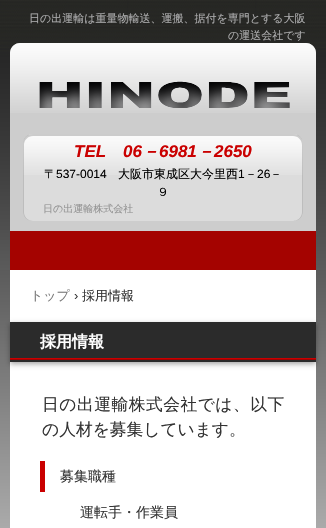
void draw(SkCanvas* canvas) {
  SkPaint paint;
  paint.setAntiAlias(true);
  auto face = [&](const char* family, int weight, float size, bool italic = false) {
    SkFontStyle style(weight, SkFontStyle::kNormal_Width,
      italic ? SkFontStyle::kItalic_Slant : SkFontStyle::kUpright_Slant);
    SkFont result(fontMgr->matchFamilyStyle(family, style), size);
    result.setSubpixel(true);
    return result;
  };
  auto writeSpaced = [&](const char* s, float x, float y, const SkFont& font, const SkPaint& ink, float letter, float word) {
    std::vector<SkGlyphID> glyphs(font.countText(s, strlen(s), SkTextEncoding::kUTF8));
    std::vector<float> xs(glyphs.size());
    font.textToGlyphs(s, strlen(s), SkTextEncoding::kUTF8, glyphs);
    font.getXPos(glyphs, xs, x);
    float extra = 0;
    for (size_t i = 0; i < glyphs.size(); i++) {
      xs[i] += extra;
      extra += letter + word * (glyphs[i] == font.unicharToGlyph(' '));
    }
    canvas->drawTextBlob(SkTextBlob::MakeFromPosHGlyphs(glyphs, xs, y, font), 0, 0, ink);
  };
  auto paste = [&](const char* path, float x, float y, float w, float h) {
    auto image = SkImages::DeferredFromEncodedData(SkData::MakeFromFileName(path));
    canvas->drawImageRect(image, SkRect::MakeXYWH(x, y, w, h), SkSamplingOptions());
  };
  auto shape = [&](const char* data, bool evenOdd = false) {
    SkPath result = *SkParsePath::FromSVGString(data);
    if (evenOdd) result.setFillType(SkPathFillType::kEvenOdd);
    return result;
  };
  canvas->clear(0xffffffff);
  paste("img/1.png", 0, 0, 326, 528);
  paint.setColor(0xffcdcdcd);
  canvas->drawPath(shape("M20 43H306C311.5 43 316 47.5 316 53V231H10V53C10 47.5 14.5 43 20 43Z"), paint);
  paste("img/2.png", 10, 43, 306, 70);
  paste("img/3.png", 39, 81, 251, 27);
  paint.setColor(0xffdcdcdc);
  canvas->drawRoundRect(SkRect::MakeXYWH(23, 134, 280, 87), 10, 10, paint);
  paste("img/4.png", 23, 134, 280, 41);
  paint.setColor(0x809d9d9d);
  canvas->drawPath(shape("M33 136H293C298 136 302 140 302 145V212C302 217 298 221 293 221C299 221 303 217 303 211V144C303 138 299 134 293 134H33C27 134 23 138 23 144V211C23 217 27 221 33 221C28 221 24 217 24 212V145C24 140 28 136 33 136Z"), paint);
  paint.setColor(0xffa40300);
  canvas->drawRect(SkRect::MakeXYWH(10, 231, 306, 39), paint);
  paint.setColor(0xffffffff);
  canvas->drawRect(SkRect::MakeXYWH(10, 270, 306, 258), paint);
  paint.setColor(0x59000000);
  paint.setMaskFilter(SkMaskFilter::MakeBlur(kNormal_SkBlurStyle, 2.5f));
  canvas->drawRect(SkRect::MakeXYWH(10, 324, 306, 40), paint);
  paint.setMaskFilter(nullptr);
  {
    const struct { float x, y, w, h; SkColor color; } items[] = {
      {10, 322, 306, 40, 0xff2b2b2b},
      {10, 358, 306, 1, 0xffca0000},
      {10, 359, 306, 1, 0xffa20000},
      {40, 461, 5, 31, 0xffca0000},
    };
    for (auto [x, y, w, h, color] : items) {
      paint.setColor(color);
      canvas->drawRect(SkRect::MakeXYWH(x, y, w, h), paint);
    }
  }
  auto f0 = face("WenQuanYi Zen Hei", 500, 11);
  paint.setColor(0xffadadae);
  canvas->drawString("日の出運輸は重量物輸送、運搬、据付を専門とする大阪", 29, 22, f0, paint);
  canvas->drawString("の運送会社です", 228, 39, f0, paint);
  auto f1 = face("Liberation Sans", 700, 17, true);
  paint.setColor(0xffca0000);
  canvas->drawString("TEL", 74, 157, f1, paint);
  canvas->drawString("06", 123, 157, f1, paint);
  auto f2 = face("WenQuanYi Zen Hei", 700, 17, true);
  canvas->drawString("－", 142, 157, f2, paint);
  canvas->drawString("6981", 159, 157, f1, paint);
  canvas->drawString("－", 197, 157, f2, paint);
  canvas->drawString("2650", 214, 157, f1, paint);
  auto f3 = face("WenQuanYi Zen Hei", 500, 12);
  paint.setColor(0xff000000);
  canvas->drawString("〒", 44, 178, f3, paint);
  auto f4 = face("Liberation Sans", 400, 12);
  canvas->drawString("537-0014", 56, 178, f4, paint);
  canvas->drawString("大阪市東成区大今里西", 118, 178, f3, paint);
  canvas->drawString("1", 238, 178, f4, paint);
  canvas->drawString("－", 245, 178, f3, paint);
  canvas->drawString("26", 257, 178, f4, paint);
  canvas->drawString("－", 270, 178, f3, paint);
  canvas->drawString("９", 157, 196, f3, paint);
  auto f5 = face("WenQuanYi Zen Hei", 500, 10);
  paint.setColor(0xff929292);
  canvas->drawString("日の出運輸株式会社", 43, 212, f5, paint);
  auto f6 = face("WenQuanYi Zen Hei", 500, 13);
  paint.setColor(0xff797979);
  canvas->drawString("トップ", 30, 300, f6, paint);
  auto f7 = face("Liberation Sans", 400, 13);
  paint.setColor(0xff333333);
  canvas->drawString("›", 74, 300, f7, paint);
  canvas->drawString("採用情報", 82, 300, f6, paint);
  auto f8 = face("WenQuanYi Zen Hei", 700, 16);
  paint.setColor(0xffffffff);
  canvas->drawString("採用情報", 40, 347, f8, paint);
  auto f9 = face("WenQuanYi Zen Hei", 500, 16.75f);
  paint.setColor(0xff333333);
  writeSpaced("日の出運輸株式会社では、以下", 42, 410, f9, paint, 0.5f, 0);
  canvas->drawString("の人材を募集しています。", 42, 435, f9, paint);
  auto f10 = face("WenQuanYi Zen Hei", 500, 14);
  canvas->drawString("募集職種", 60, 481, f10, paint);
  canvas->drawString("運転手・作業員", 80, 517, f10, paint);
}
